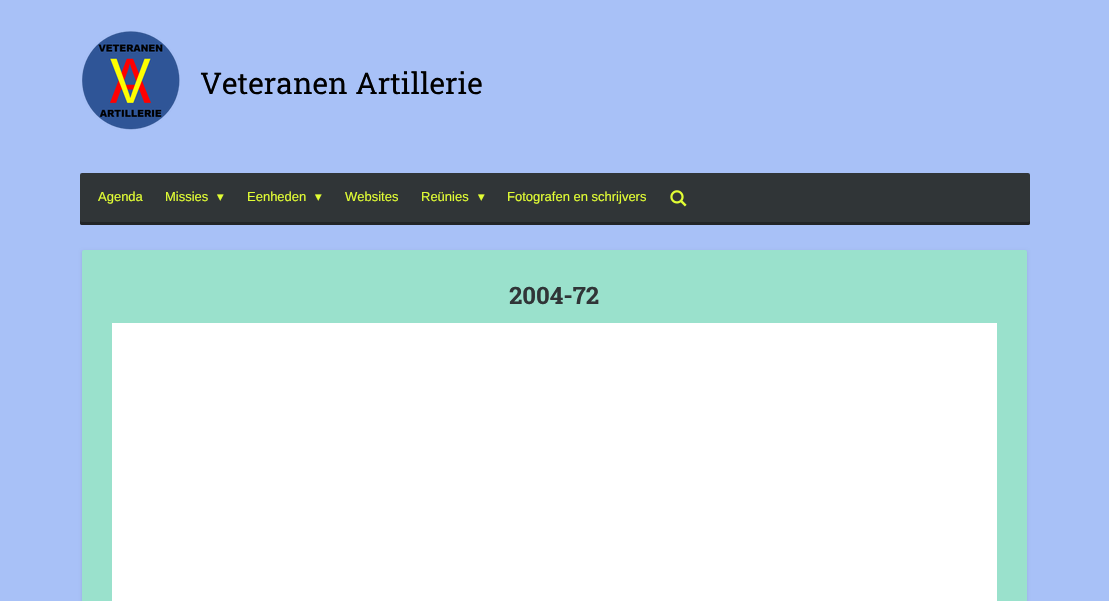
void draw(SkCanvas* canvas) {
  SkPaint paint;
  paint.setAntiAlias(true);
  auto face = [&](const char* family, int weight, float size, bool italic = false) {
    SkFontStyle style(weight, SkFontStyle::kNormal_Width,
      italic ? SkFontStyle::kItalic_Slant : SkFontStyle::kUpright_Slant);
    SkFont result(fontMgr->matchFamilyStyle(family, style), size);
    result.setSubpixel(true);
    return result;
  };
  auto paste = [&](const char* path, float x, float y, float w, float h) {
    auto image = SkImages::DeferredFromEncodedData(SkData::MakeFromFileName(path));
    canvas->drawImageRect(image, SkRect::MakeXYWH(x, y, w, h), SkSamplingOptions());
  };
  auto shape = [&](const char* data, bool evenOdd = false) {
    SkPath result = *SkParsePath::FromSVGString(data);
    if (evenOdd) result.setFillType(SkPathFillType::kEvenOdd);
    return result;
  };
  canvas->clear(0xffa8c1f7);
  paste("img/1.png", 82, 31, 98, 99);
  paint.setColor(0xff303537);
  canvas->drawRoundRect(SkRect::MakeXYWH(80, 173, 950, 52), 2, 2, paint);
  paint.setColor(0xff222527);
  canvas->drawPath(shape("M80 220V223C80 224 81 225 82 225H1028C1029 225 1030 224 1030 223V221L1028 222H82C81 222 80 221 80 220Z"), paint);
  paste("img/2.png", 670, 190, 17, 17);
  paint.setColor(0x1a000000);
  paint.setMaskFilter(SkMaskFilter::MakeBlur(kNormal_SkBlurStyle, 1.5f));
  canvas->drawRect(SkRect::MakeXYWH(82, 251, 945, 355), paint);
  paint.setMaskFilter(nullptr);
  paint.setColor(0xff9ae1cc);
  canvas->drawRoundRect(SkRect::MakeXYWH(82, 250, 945, 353), 2, 2, paint);
  paint.setColor(0xffffffff);
  canvas->drawRect(SkRect::MakeXYWH(112, 323, 885, 278), paint);
  auto f0 = face("Roboto Slab", 400, 30);
  paint.setColor(0xff000000);
  canvas->drawString("Veteranen Artillerie", 200, 94, f0, paint);
  auto f1 = face("Liberation Sans", 400, 13);
  paint.setColor(0xffe2fe34);
  canvas->drawString("Agenda", 98, 201, f1, paint);
  canvas->drawString("Missies", 165, 201, f1, paint);
  auto f2 = face("DejaVu Sans", 400, 13);
  canvas->drawString("▾", 217, 201, f2, paint);
  canvas->drawString("Eenheden", 247, 201, f1, paint);
  canvas->drawString("▾", 315, 201, f2, paint);
  canvas->drawString("Websites", 345, 201, f1, paint);
  canvas->drawString("Reünies", 421, 201, f1, paint);
  canvas->drawString("▾", 478, 201, f2, paint);
  canvas->drawString("Fotografen en schrijvers", 507, 201, f1, paint);
  auto f3 = face("Roboto Slab", 700, 24);
  paint.setColor(0xff303537);
  canvas->drawString("2004-72", 509, 304, f3, paint);
}
